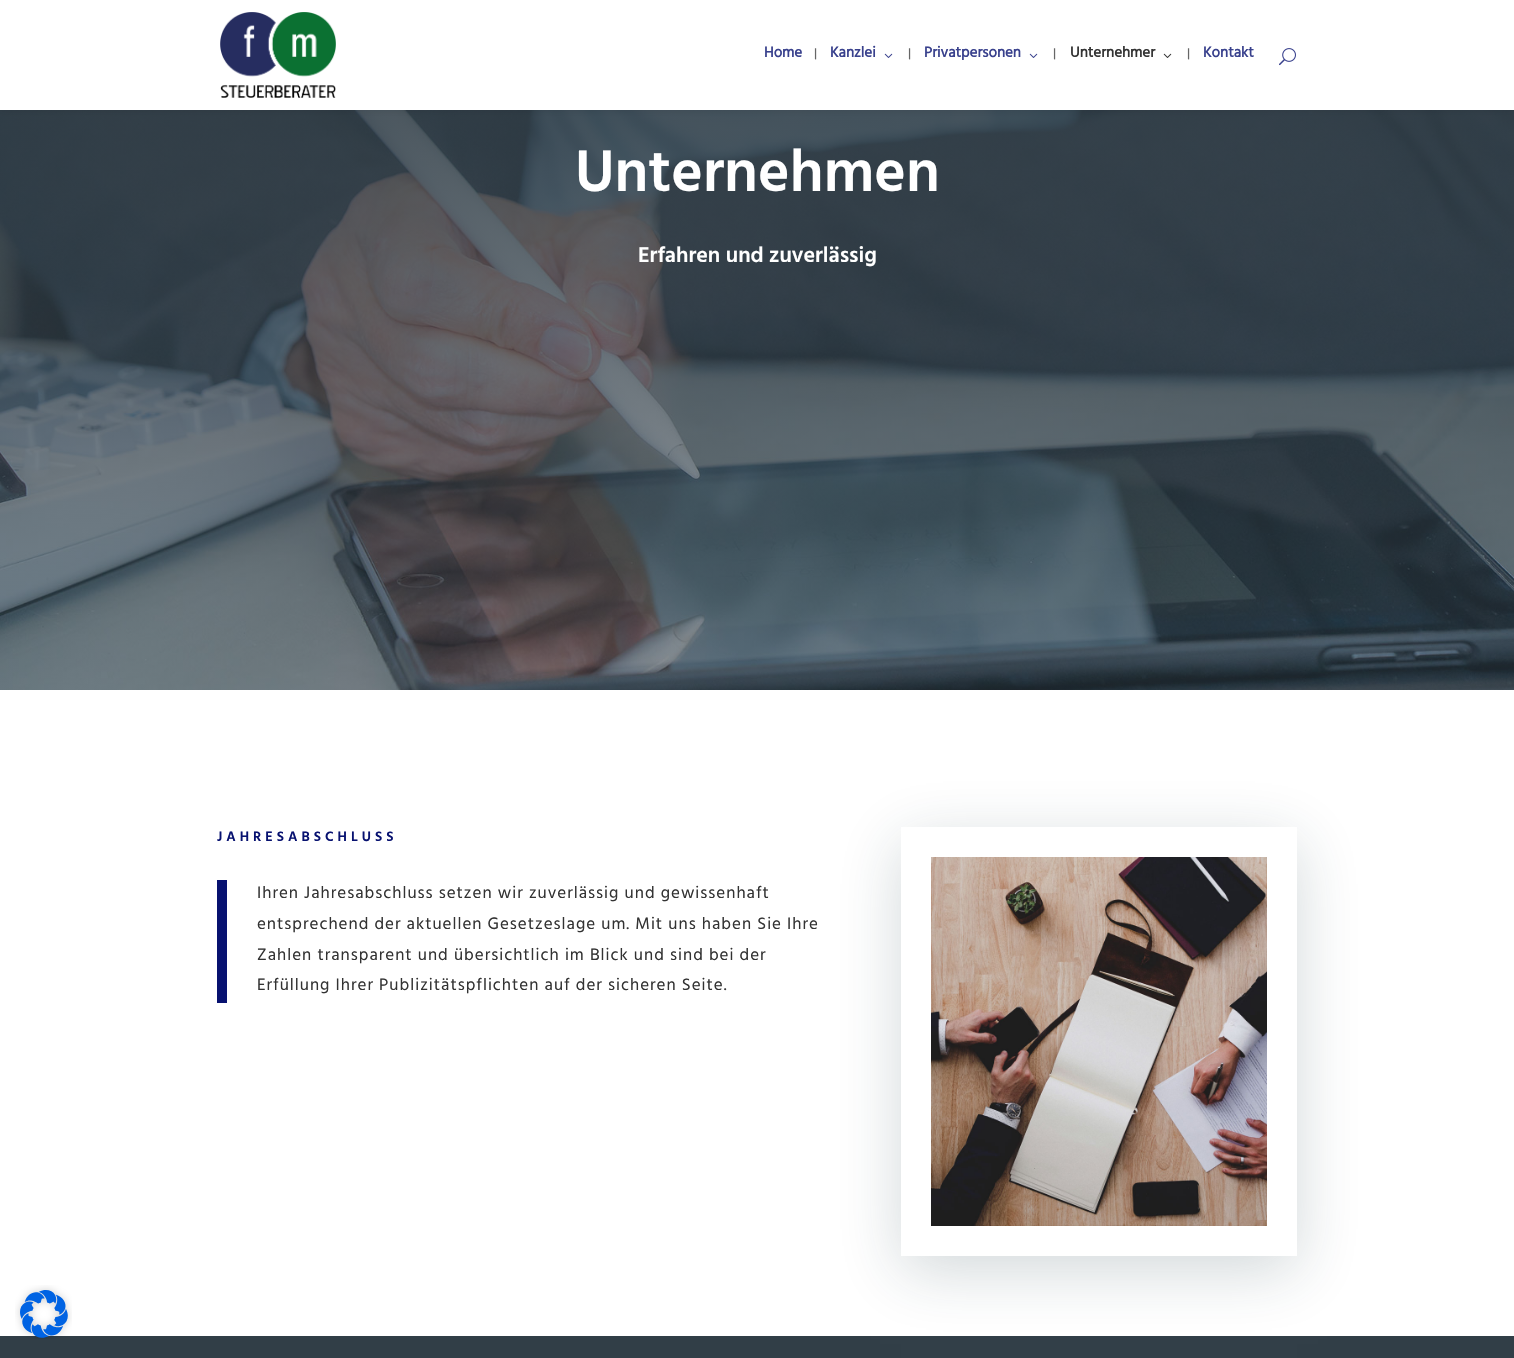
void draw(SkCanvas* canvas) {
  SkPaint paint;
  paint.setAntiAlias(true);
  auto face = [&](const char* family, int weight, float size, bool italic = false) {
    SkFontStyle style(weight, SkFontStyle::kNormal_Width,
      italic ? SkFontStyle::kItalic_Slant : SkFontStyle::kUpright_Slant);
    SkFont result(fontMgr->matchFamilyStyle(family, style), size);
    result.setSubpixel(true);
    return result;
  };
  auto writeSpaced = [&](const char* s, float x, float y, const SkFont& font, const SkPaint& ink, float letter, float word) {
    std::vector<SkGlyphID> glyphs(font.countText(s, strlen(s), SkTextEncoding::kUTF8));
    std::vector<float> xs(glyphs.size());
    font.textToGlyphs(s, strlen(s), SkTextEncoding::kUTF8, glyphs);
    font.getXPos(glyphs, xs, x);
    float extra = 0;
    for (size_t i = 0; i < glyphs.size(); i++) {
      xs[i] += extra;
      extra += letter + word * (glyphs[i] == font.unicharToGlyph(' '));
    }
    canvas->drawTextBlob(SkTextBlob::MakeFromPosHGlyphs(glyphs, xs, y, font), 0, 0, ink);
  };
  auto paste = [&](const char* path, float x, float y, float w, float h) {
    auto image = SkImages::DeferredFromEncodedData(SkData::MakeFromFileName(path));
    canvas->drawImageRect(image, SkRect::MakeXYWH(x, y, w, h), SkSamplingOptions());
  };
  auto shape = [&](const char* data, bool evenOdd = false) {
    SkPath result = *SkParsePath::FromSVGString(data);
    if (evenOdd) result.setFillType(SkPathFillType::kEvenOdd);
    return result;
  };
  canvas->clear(0xffffffff);
  paste("img/5.png", 0, 110, 1514, 580);
  paint.setColor(0x1a000000);
  paint.setMaskFilter(SkMaskFilter::MakeBlur(kNormal_SkBlurStyle, 3.5f));
  canvas->drawRect(SkRect::MakeXYWH(0, 0, 1514, 110), paint);
  paint.setMaskFilter(nullptr);
  paint.setColor(0xffffffff);
  canvas->drawRect(SkRect::MakeXYWH(0, 0, 1514, 110), paint);
  paste("img/1.png", 220, 12, 116, 86);
  paste("img/2.png", 884, 53, 9, 5);
  paste("img/2.png", 1029, 53, 9, 5);
  paste("img/3.png", 1163, 53, 9, 5);
  paste("img/4.png", 1279, 48, 17, 18);
  paint.setColor(0xff071170);
  canvas->drawRect(SkRect::MakeXYWH(217, 880, 10, 123), paint);
  paint.setColor(0xff313e47);
  canvas->drawRect(SkRect::MakeXYWH(0, 1336, 1514, 22), paint);
  canvas->save();
  canvas->clipPath(shape("M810 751H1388V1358H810ZM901 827H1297V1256H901Z", true), true);
  paint.setColor(0x331d3d47);
  paint.setMaskFilter(SkMaskFilter::MakeBlur(kNormal_SkBlurStyle, 30));
  canvas->drawRect(SkRect::MakeXYWH(901, 842, 396, 429), paint);
  paint.setMaskFilter(nullptr);
  canvas->restore();
  paste("img/6.png", 931, 857, 336, 369);
  paste("img/7.png", 15, 1285, 57, 54);
  auto f0 = face("Hind Guntur", 700, 15);
  paint.setColor(0xff39418d);
  canvas->drawString("Home", 764, 57, f0, paint);
  auto f1 = face("Hind Guntur", 700, 12);
  paint.setColor(0xff666666);
  canvas->drawString("|", 814, 57, f1, paint);
  paint.setColor(0xff39418d);
  canvas->drawString("Kanzlei", 830, 57, f0, paint);
  paint.setColor(0xff666666);
  canvas->drawString("|", 908, 57, f1, paint);
  paint.setColor(0xff39418d);
  canvas->drawString("Privatpersonen", 924, 57, f0, paint);
  paint.setColor(0xff666666);
  canvas->drawString("|", 1053, 57, f1, paint);
  paint.setColor(0xff333333);
  canvas->drawString("Unternehmer", 1070, 57, f0, paint);
  paint.setColor(0xff666666);
  canvas->drawString("|", 1187, 57, f1, paint);
  paint.setColor(0xff39418d);
  canvas->drawString("Kontakt", 1203, 57, f0, paint);
  auto f2 = face("Hind Guntur", 600, 60);
  paint.setColor(0xffffffff);
  canvas->drawString("Unternehmen", 575, 191, f2, paint);
  auto f3 = face("Hind Guntur", 600, 22);
  canvas->drawString("Erfahren und zuverlässig", 638, 262, f3, paint);
  auto f4 = face("Hind Guntur", 600, 14);
  paint.setColor(0xff071170);
  writeSpaced("JAHRESABSCHLUSS", 217, 841, f4, paint, 4, 0);
  auto f5 = face("Hind Guntur", 400, 17);
  paint.setColor(0xff333333);
  {
    const struct { const char* s; float x, y; } items[] = {
      {"Ihren Jahresabschluss setzen wir zuverlässig und gewissenhaft", 257, 898},
      {"entsprechend der aktuellen Gesetzeslage um. Mit uns haben Sie Ihre", 257, 929},
      {"Zahlen transparent und übersichtlich im Blick und sind bei der", 257, 960},
      {"Erfüllung Ihrer Publizitätspflichten auf der sicheren Seite.", 257, 990},
    };
    for (auto [s, x, y] : items) {
      writeSpaced(s, x, y, f5, paint, 1, 0);
    }
  }
}
